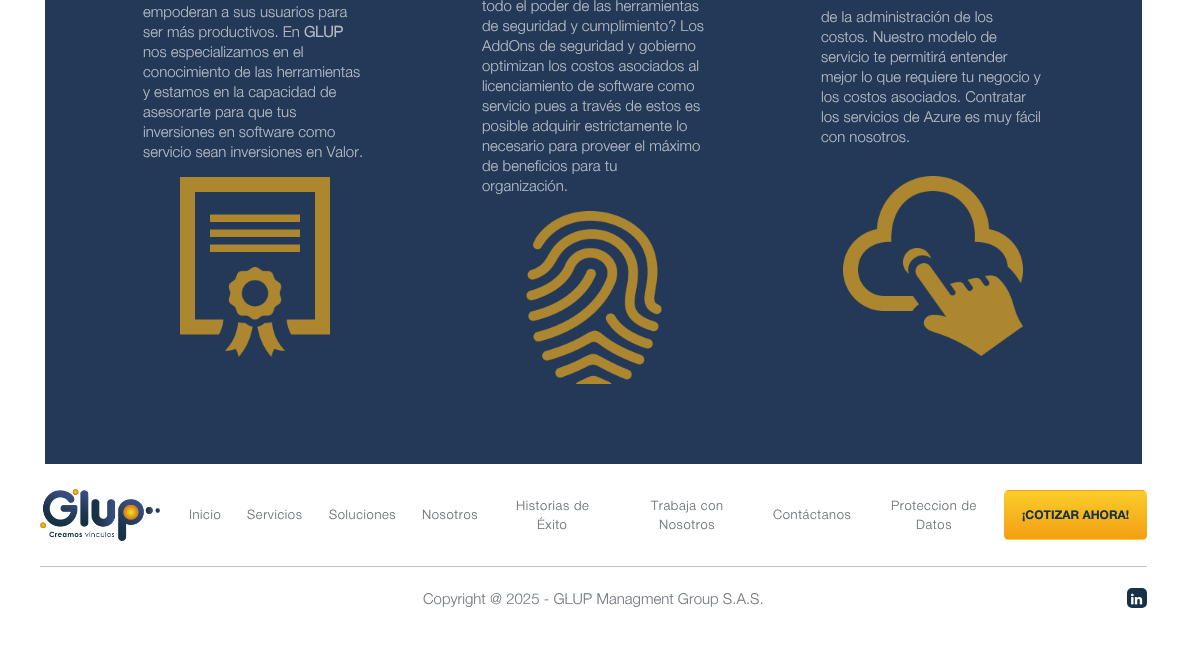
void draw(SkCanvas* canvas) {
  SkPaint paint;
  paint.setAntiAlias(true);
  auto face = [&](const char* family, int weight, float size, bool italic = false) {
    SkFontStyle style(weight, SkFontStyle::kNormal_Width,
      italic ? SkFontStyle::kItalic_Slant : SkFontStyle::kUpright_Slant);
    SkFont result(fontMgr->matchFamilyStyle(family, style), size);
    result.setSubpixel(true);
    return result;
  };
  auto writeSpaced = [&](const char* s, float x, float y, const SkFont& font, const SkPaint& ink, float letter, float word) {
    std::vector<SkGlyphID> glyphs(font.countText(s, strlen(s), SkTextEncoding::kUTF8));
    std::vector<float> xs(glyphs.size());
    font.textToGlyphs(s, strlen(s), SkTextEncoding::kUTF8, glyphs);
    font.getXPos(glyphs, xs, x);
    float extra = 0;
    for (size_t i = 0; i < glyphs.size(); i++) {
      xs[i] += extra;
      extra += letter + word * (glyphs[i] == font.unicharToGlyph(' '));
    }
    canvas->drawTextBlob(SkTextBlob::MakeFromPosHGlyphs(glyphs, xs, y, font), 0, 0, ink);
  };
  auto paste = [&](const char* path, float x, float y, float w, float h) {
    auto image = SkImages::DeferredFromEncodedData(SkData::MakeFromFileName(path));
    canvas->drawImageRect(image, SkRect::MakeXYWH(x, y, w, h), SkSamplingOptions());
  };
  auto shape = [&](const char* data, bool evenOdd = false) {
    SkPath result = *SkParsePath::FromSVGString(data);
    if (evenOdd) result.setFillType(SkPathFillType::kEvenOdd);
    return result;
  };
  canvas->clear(0xffffffff);
  paint.setColor(0xff233957);
  canvas->drawRect(SkRect::MakeXYWH(45, 0, 1097, 464), paint);
  paste("img/1.png", 180, 177, 150, 180);
  paste("img/2.png", 526, 211, 136, 173);
  paste("img/3.png", 843, 176, 180, 180);
  paint.setColor(0xffc2c1c5);
  canvas->drawRect(SkRect::MakeXYWH(40, 566, 1107, 1), paint);
  paste("img/4.png", 40, 489, 120, 52);
  canvas->save();
  canvas->clipPath(shape("M1009 490H1142C1145 490 1147 492 1147 495V535C1147 538 1145 540 1142 540H1009C1006 540 1004 538 1004 535V495C1004 492 1006 490 1009 490Z"), true);
  {
    const SkColor colors[] = {0xfffacd2b, 0xfff39f13};
    const float stops[] = {0, 1};
    const SkPoint ends[] = {{1076, 443}, {1076, 491}};
    paint.setShader(SkGradientShader::MakeLinear(ends, colors, stops, 2, SkTileMode::kClamp));
    paint.setAlpha(255);
  }
  canvas->drawRect(SkRect::MakeXYWH(1004, 490, 143, 1), paint);
  {
    const SkColor colors[] = {0xfffacd2b, 0xfff39f13};
    const float stops[] = {0, 1};
    const SkPoint ends[] = {{1076, 491}, {1076, 539}};
    paint.setShader(SkGradientShader::MakeLinear(ends, colors, stops, 2, SkTileMode::kClamp));
    paint.setAlpha(255);
  }
  canvas->drawRect(SkRect::MakeXYWH(1004, 491, 143, 48), paint);
  {
    const SkColor colors[] = {0xfffacd2b, 0xfff39f13};
    const float stops[] = {0, 1};
    const SkPoint ends[] = {{1076, 539}, {1076, 587}};
    paint.setShader(SkGradientShader::MakeLinear(ends, colors, stops, 2, SkTileMode::kClamp));
    paint.setAlpha(255);
  }
  canvas->drawRect(SkRect::MakeXYWH(1004, 539, 143, 1), paint);
  canvas->restore();
  paint.setShader(nullptr);
  paint.setColor(0xff173246);
  canvas->drawRoundRect(SkRect::MakeXYWH(1127, 588, 20, 20), 5, 5, paint);
  paste("img/5.png", 1131, 593, 12, 12);
  auto f0 = face("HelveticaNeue", 300, 15);
  paint.setColor(0xffb2bac4);
  canvas->drawString("empoderan a sus usuarios para", 143, 17, f0, paint);
  canvas->drawString("ser más productivos. En", 143, 37, f0, paint);
  auto f1 = face("HelveticaNeue", 700, 15);
  canvas->drawString("GLUP", 304, 37, f1, paint);
  {
    const struct { const char* s; float x, y; } items[] = {
      {"nos especializamos en el", 143, 57},
      {"conocimiento de las herramientas", 143, 77},
      {"y estamos en la capacidad de", 143, 97},
      {"asesorarte para que tus", 143, 117},
      {"inversiones en software como", 143, 137},
      {"servicio sean inversiones en Valor.", 143, 157},
      {"todo el poder de las herramientas", 482, 11},
      {"de seguridad y cumplimiento? Los", 482, 31},
      {"AddOns de seguridad y gobierno", 482, 51},
      {"optimizan los costos asociados al", 482, 71},
      {"licenciamiento de software como", 482, 91},
      {"servicio pues a través de estos es", 482, 111},
      {"posible adquirir estrictamente lo", 482, 131},
      {"necesario para proveer el máximo", 482, 151},
      {"de beneficios para tu", 482, 171},
      {"organización.", 482, 191},
      {"de la administración de los", 821, 22},
      {"costos. Nuestro modelo de", 821, 42},
      {"servicio te permitirá entender", 821, 62},
      {"mejor lo que requiere tu negocio y", 821, 82},
      {"los costos asociados. Contratar", 821, 102},
      {"los servicios de Azure es muy fácil", 821, 122},
      {"con nosotros.", 821, 142},
    };
    for (auto [s, x, y] : items) {
      canvas->drawString(s, x, y, f0, paint);
    }
  }
  auto f2 = face("HelveticaNeue", 300, 13);
  paint.setColor(0xff6d7278);
  {
    const struct { const char* s; float x, y; } items[] = {
      {"Inicio", 189, 519},
      {"Servicios", 247, 519},
      {"Soluciones", 329, 519},
      {"Nosotros", 422, 519},
      {"Historias de", 516, 510},
      {"Éxito", 537, 529},
      {"Trabaja con", 651, 510},
      {"Nosotros", 659, 529},
      {"Contáctanos", 773, 519},
      {"Proteccion de", 891, 510},
      {"Datos", 916, 529},
    };
    for (auto [s, x, y] : items) {
      writeSpaced(s, x, y, f2, paint, 0.6f, 0);
    }
  }
  auto f3 = face("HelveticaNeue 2", 700, 12);
  paint.setColor(0xff173246);
  canvas->drawString("¡COTIZAR AHORA!", 1022, 519, f3, paint);
  paint.setColor(0xff777c82);
  canvas->drawString("Copyright @ 2025 - GLUP Managment Group S.A.S.", 423, 604, f0, paint);
}
